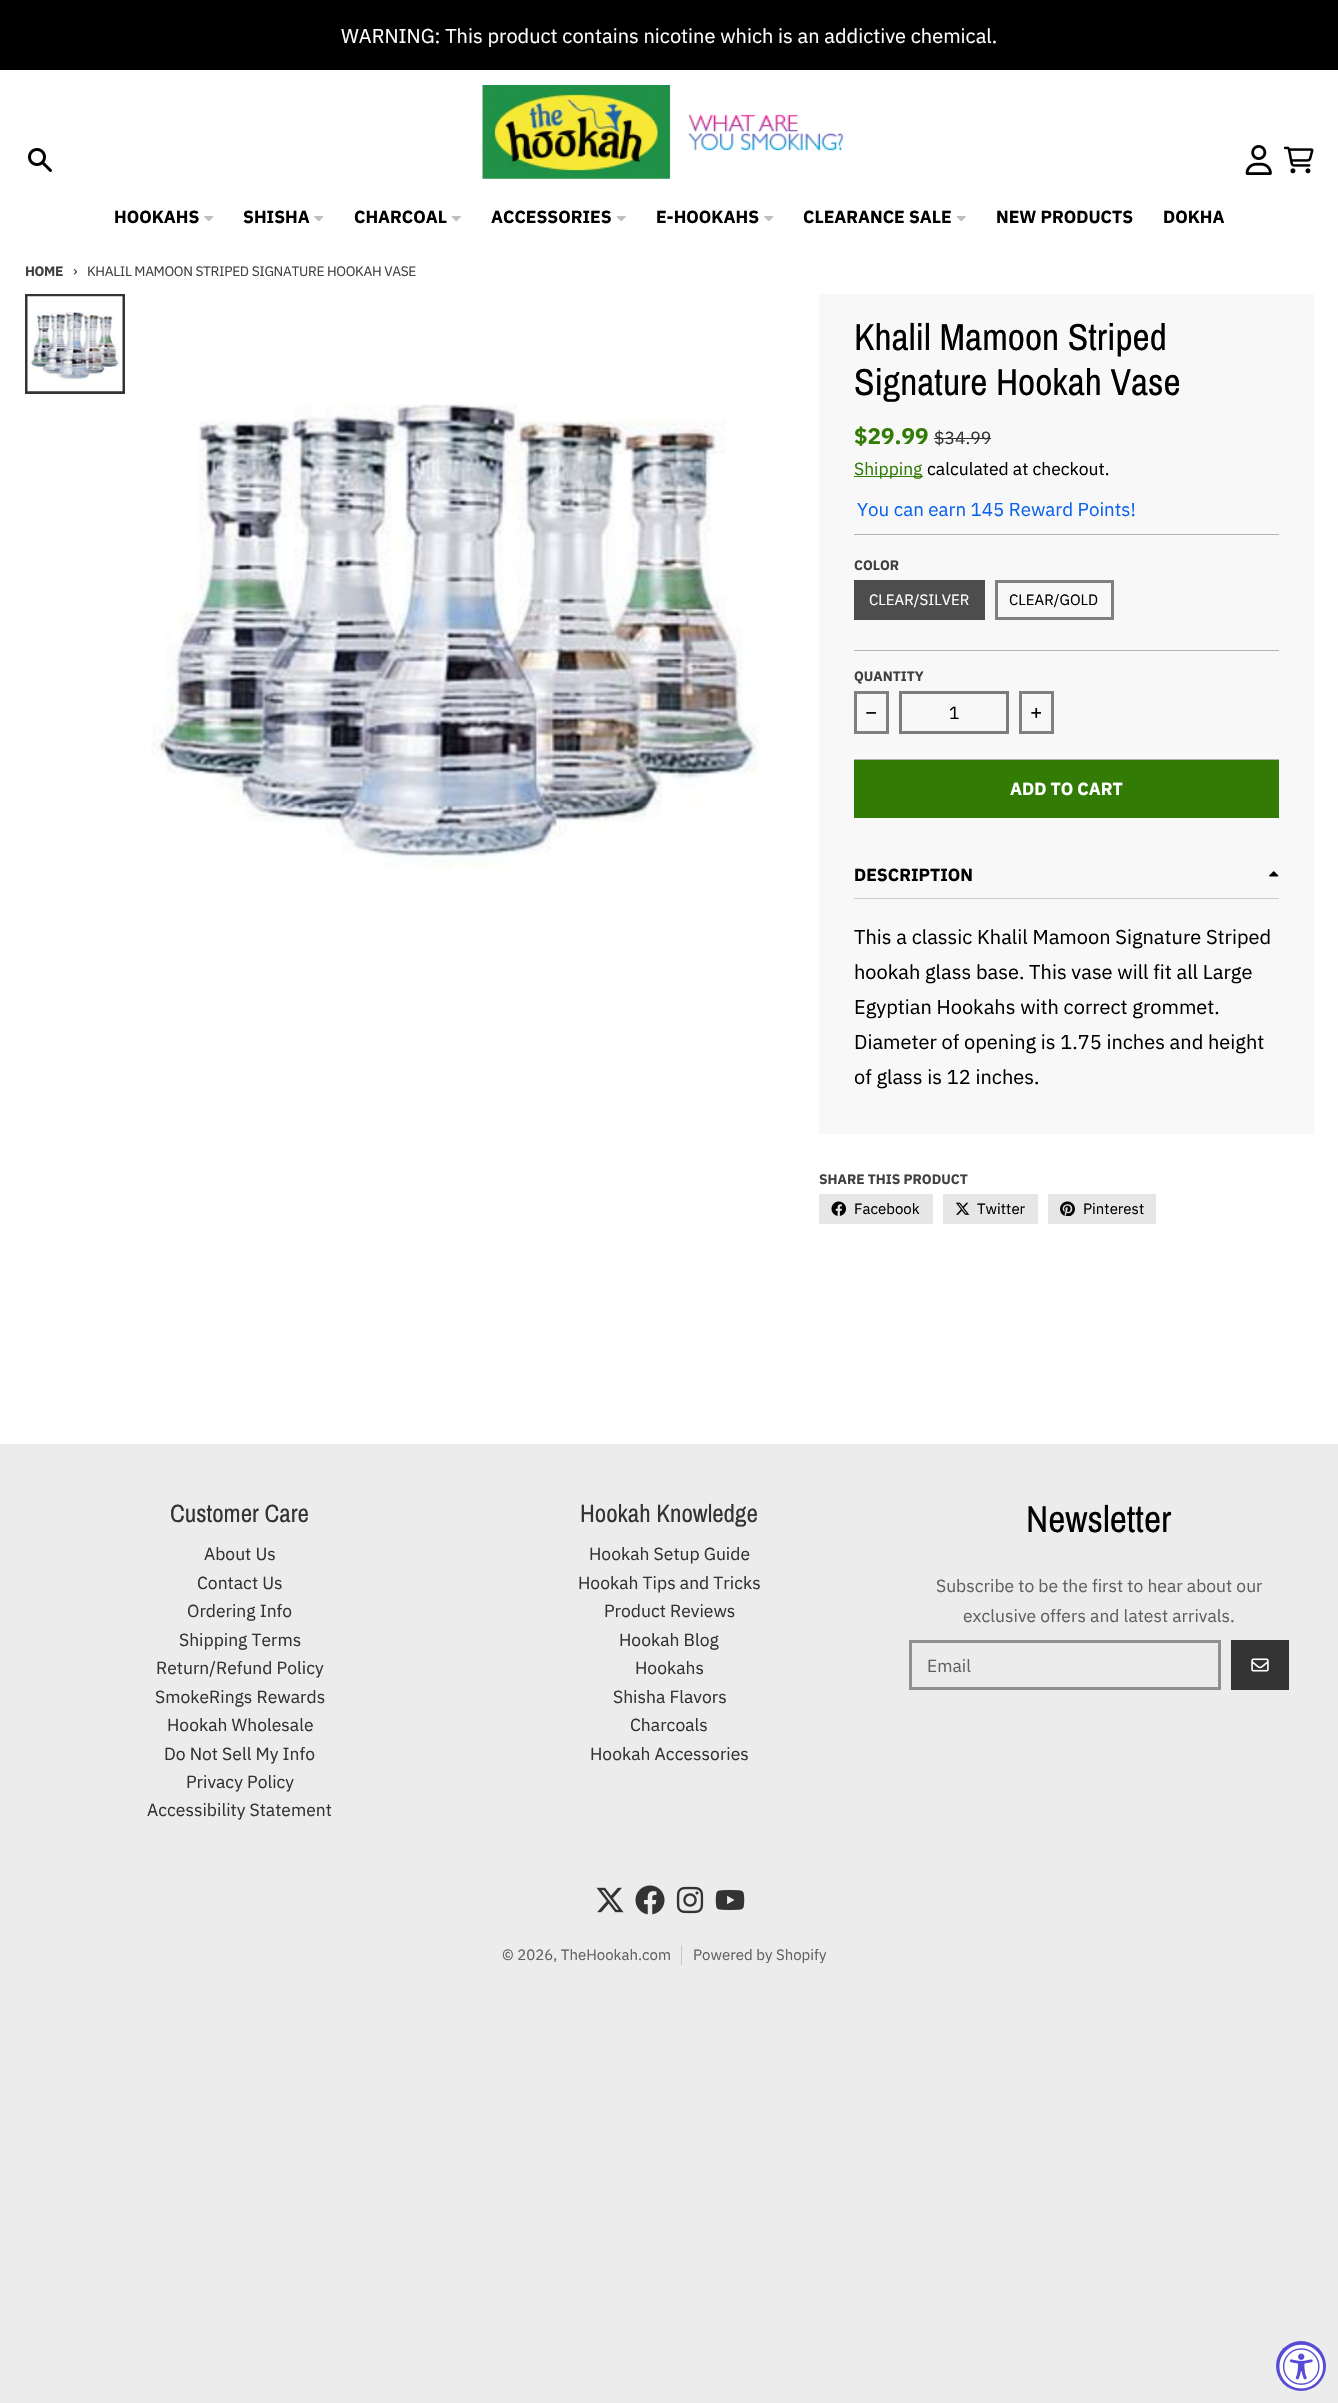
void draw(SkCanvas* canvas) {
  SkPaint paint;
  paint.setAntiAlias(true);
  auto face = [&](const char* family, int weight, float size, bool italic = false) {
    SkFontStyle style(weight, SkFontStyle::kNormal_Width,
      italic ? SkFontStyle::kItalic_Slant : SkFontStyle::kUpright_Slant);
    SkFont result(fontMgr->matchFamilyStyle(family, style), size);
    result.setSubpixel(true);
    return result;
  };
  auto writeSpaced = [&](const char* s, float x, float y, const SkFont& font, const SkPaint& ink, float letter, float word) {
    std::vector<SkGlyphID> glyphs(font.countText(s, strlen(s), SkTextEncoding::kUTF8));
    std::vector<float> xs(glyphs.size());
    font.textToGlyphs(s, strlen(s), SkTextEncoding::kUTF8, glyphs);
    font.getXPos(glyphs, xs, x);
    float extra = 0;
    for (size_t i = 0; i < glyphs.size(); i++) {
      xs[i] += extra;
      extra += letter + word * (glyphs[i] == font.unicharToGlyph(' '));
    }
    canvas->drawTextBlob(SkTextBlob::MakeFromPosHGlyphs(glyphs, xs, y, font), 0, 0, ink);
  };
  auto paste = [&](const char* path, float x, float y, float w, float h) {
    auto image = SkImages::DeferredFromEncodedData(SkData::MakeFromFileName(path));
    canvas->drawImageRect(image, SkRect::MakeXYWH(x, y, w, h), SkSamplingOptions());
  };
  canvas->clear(0xffececec);
  paint.setColor(0xff000000);
  canvas->drawRect(SkRect::MakeXYWH(0, 0, 1338, 70), paint);
  paint.setColor(0xffffffff);
  canvas->drawRect(SkRect::MakeXYWH(0, 70, 1338, 1374), paint);
  paste("img/1.png", 28, 148, 24, 24);
  paste("img/2.png", 1245, 145, 27, 30);
  paste("img/3.png", 1284, 146, 30, 28);
  paste("img/4.png", 482, 85, 362, 94);
  paste("img/5.png", 204, 216, 10, 6);
  paste("img/5.png", 314, 216, 10, 6);
  paste("img/6.png", 451, 216, 10, 6);
  paste("img/6.png", 616, 216, 10, 6);
  paste("img/5.png", 764, 216, 10, 6);
  paste("img/6.png", 956, 216, 10, 6);
  paint.setStroke(true);
  paint.setStrokeWidth(3);
  paint.setColor(0xff333333);
  canvas->drawRect(SkRect::MakeXYWH(26.5f, 295.5f, 97, 97), paint);
  paste("img/7.png", 27, 296, 96, 96);
  paste("img/8.png", 151, 404, 612, 465);
  paint.setStroke(false);
  {
    const struct { float x, y, w, h; SkColor color; } items[] = {
      {819, 294, 495, 840, 0xfff8f8f8},
      {934, 438, 57, 1, 0xff333333},
      {854, 476, 69, 1, 0xff327c06},
      {854, 534, 425, 1, 0xffb3b3b3},
      {854, 650, 425, 1, 0xffb3b3b3},
      {854, 580, 131, 40, 0xff4d4d4d},
    };
    for (auto [x, y, w, h, color] : items) {
      paint.setColor(color);
      canvas->drawRect(SkRect::MakeXYWH(x, y, w, h), paint);
    }
  }
  paint.setStroke(true);
  paint.setColor(0xff808080);
  canvas->drawRect(SkRect::MakeXYWH(996.5f, 581.5f, 116, 37), paint);
  canvas->drawRect(SkRect::MakeXYWH(855.5f, 692.5f, 32, 40), paint);
  paste("img/9.png", 866, 712, 10, 2);
  paint.setColor(0xff7c7c7c);
  canvas->drawRect(SkRect::MakeXYWH(900.5f, 692.5f, 107, 40), paint);
  paint.setColor(0xff808080);
  canvas->drawRect(SkRect::MakeXYWH(1020.5f, 692.5f, 32, 40), paint);
  paste("img/10.png", 1031, 707, 10, 11);
  paint.setStroke(false);
  {
    const struct { float x, y, w, h; SkColor color; } items[] = {
      {854, 759, 425, 1, 0xffb3b3b3},
      {854, 760, 425, 58, 0xff327c06},
      {854, 898, 425, 1, 0xffcccccc},
    };
    for (auto [x, y, w, h, color] : items) {
      paint.setColor(color);
      canvas->drawRect(SkRect::MakeXYWH(x, y, w, h), paint);
    }
  }
  paste("img/11.png", 1269, 871, 10, 6);
  paint.setColor(0xffe6e6e6);
  canvas->drawRect(SkRect::MakeXYWH(819, 1194, 114, 30), paint);
  paste("img/12.png", 831, 1201, 15, 15);
  canvas->drawRect(SkRect::MakeXYWH(943, 1194, 95, 30), paint);
  paste("img/13.png", 955, 1202, 15, 13);
  canvas->drawRect(SkRect::MakeXYWH(1048, 1194, 108, 30), paint);
  paste("img/14.png", 1060, 1201, 15, 15);
  paint.setStroke(true);
  paint.setColor(0xff909090);
  canvas->drawRect(SkRect::MakeXYWH(910.5f, 1641.5f, 309, 47), paint);
  paint.setStroke(false);
  paint.setColor(0xff333333);
  canvas->drawRect(SkRect::MakeXYWH(1231, 1640, 58, 50), paint);
  paste("img/15.png", 1251, 1658, 18, 14);
  paste("img/16.png", 596, 1887, 28, 26);
  paste("img/17.png", 635, 1885, 30, 30);
  paste("img/18.png", 676, 1886, 28, 28);
  paste("img/19.png", 715, 1890, 30, 20);
  paint.setColor(0xffc7c7c7);
  canvas->drawRect(SkRect::MakeXYWH(681, 1945, 1, 20), paint);
  paint.setColor(0xff574cd5);
  canvas->drawCircle(1301, 2366, 25, paint);
  paste("img/20.png", 1279, 2344, 45, 45);
  auto f0 = face("IBM Plex Sans", 400, 20);
  paint.setColor(0xffffffff);
  canvas->drawString("WARNING: This product contains nicotine which is an addictive chemical.", 341, 43, f0, paint);
  auto f1 = face("IBM Plex Sans", 700, 17.5f);
  paint.setColor(0xff000000);
  {
    const struct { const char* s; float x, y; } items[] = {
      {"HOOKAHS", 114, 223},
      {"SHISHA", 243, 223},
      {"CHARCOAL", 354, 223},
      {"ACCESSORIES", 491, 223},
      {"E-HOOKAHS", 656, 223},
      {"CLEARANCE SALE", 803, 223},
      {"NEW PRODUCTS", 996, 223},
      {"DOKHA", 1163, 223},
    };
    for (auto [s, x, y] : items) {
      canvas->drawString(s, x, y, f1, paint);
    }
  }
  auto f2 = face("IBM Plex Sans", 700, 13.75f);
  paint.setColor(0xff404040);
  writeSpaced("HOME", 25, 276, f2, paint, -0.35f, 0);
  auto f3 = face("IBM Plex Sans", 400, 15);
  writeSpaced("›", 73, 276, f3, paint, -0.35f, 0);
  auto f4 = face("IBM Plex Sans", 400, 13.75f);
  writeSpaced("KHALIL MAMOON STRIPED SIGNATURE HOOKAH VASE", 87, 276, f4, paint, -0.35f, 0);
  auto f5 = face("Archivo Narrow", 400, 37.5f);
  paint.setColor(0xff000000);
  canvas->drawString("Khalil Mamoon Striped", 854, 350, f5, paint);
  canvas->drawString("Signature Hookah Vase", 854, 395, f5, paint);
  auto f6 = face("IBM Plex Sans", 700, 22.5f);
  paint.setColor(0xff327c06);
  canvas->drawString("$29.99", 854, 444, f6, paint);
  auto f7 = face("IBM Plex Sans", 400, 17.5f);
  paint.setColor(0xff333333);
  canvas->drawString("$34.99", 934, 444, f7, paint);
  paint.setColor(0xff327c06);
  canvas->drawString("Shipping", 854, 475, f7, paint);
  paint.setColor(0xff000000);
  canvas->drawString("calculated at checkout.", 927, 475, f7, paint);
  auto f8 = face("IBM Plex Sans", 400, 18.75f);
  paint.setColor(0xff0a62ed);
  canvas->drawString("You can earn 145 Reward Points!", 857, 516, f8, paint);
  paint.setColor(0xff404040);
  canvas->drawString("COLOR", 854, 570, f2, paint);
  paint.setColor(0xffffffff);
  canvas->drawString("CLEAR/SILVER", 869, 605, f3, paint);
  paint.setColor(0xff000000);
  canvas->drawString("CLEAR/GOLD", 1009, 605, f3, paint);
  paint.setColor(0xff404040);
  canvas->drawString("QUANTITY", 854, 681, f2, paint);
  paint.setColor(0xff000000);
  canvas->drawString("1", 949, 719, f7, paint);
  paint.setColor(0xffffffff);
  canvas->drawString("ADD TO CART", 1010, 795, f1, paint);
  paint.setColor(0xff000000);
  canvas->drawString("DESCRIPTION", 854, 881, f1, paint);
  {
    const struct { const char* s; float x, y; } items[] = {
      {"This a classic Khalil Mamoon Signature Striped", 854, 944},
      {"hookah glass base. This vase will fit all Large", 854, 979},
      {"Egyptian Hookahs with correct grommet.", 854, 1014},
      {"Diameter of opening is 1.75 inches and height", 854, 1049},
      {"of glass is 12 inches.", 854, 1084},
    };
    for (auto [s, x, y] : items) {
      canvas->drawString(s, x, y, f0, paint);
    }
  }
  paint.setColor(0xff404040);
  canvas->drawString("SHARE THIS PRODUCT", 819, 1184, f2, paint);
  paint.setColor(0xff000000);
  {
    const struct { const char* s; float x, y; } items[] = {
      {"Facebook", 854, 1214},
      {"Twitter", 977, 1214},
      {"Pinterest", 1083, 1214},
    };
    for (auto [s, x, y] : items) {
      canvas->drawString(s, x, y, f3, paint);
    }
  }
  auto f9 = face("Archivo Narrow", 400, 25);
  paint.setColor(0xff333333);
  canvas->drawString("Customer Care", 170, 1522, f9, paint);
  {
    const struct { const char* s; float x, y; } items[] = {
      {"About Us", 204, 1560},
      {"Contact Us", 197, 1589},
      {"Ordering Info", 187, 1617},
      {"Shipping Terms", 179, 1646},
      {"Return/Refund Policy", 156, 1674},
      {"SmokeRings Rewards", 155, 1703},
      {"Hookah Wholesale", 167, 1731},
      {"Do Not Sell My Info", 164, 1760},
      {"Privacy Policy", 186, 1788},
      {"Accessibility Statement", 147, 1816},
    };
    for (auto [s, x, y] : items) {
      canvas->drawString(s, x, y, f7, paint);
    }
  }
  canvas->drawString("Hookah Knowledge", 580, 1522, f9, paint);
  {
    const struct { const char* s; float x, y; } items[] = {
      {"Hookah Setup Guide", 589, 1560},
      {"Hookah Tips and Tricks", 578, 1589},
      {"Product Reviews", 604, 1617},
      {"Hookah Blog", 619, 1646},
      {"Hookahs", 635, 1674},
      {"Shisha Flavors", 613, 1703},
      {"Charcoals", 630, 1731},
      {"Hookah Accessories", 590, 1760},
    };
    for (auto [s, x, y] : items) {
      canvas->drawString(s, x, y, f7, paint);
    }
  }
  paint.setColor(0xff000000);
  canvas->drawString("Newsletter", 1026, 1532, f5, paint);
  paint.setColor(0xff616161);
  {
    const struct { const char* s; float x, y; } items[] = {
      {"Subscribe to be the first to hear about our", 936, 1592},
      {"exclusive offers and latest arrivals.", 963, 1622},
      {"Email", 927, 1672},
    };
    for (auto [s, x, y] : items) {
      canvas->drawString(s, x, y, f7, paint);
    }
  }
  canvas->drawString("© 2026, TheHookah.com", 502, 1960, f3, paint);
  canvas->drawString("Powered by Shopify", 693, 1960, f3, paint);
}
